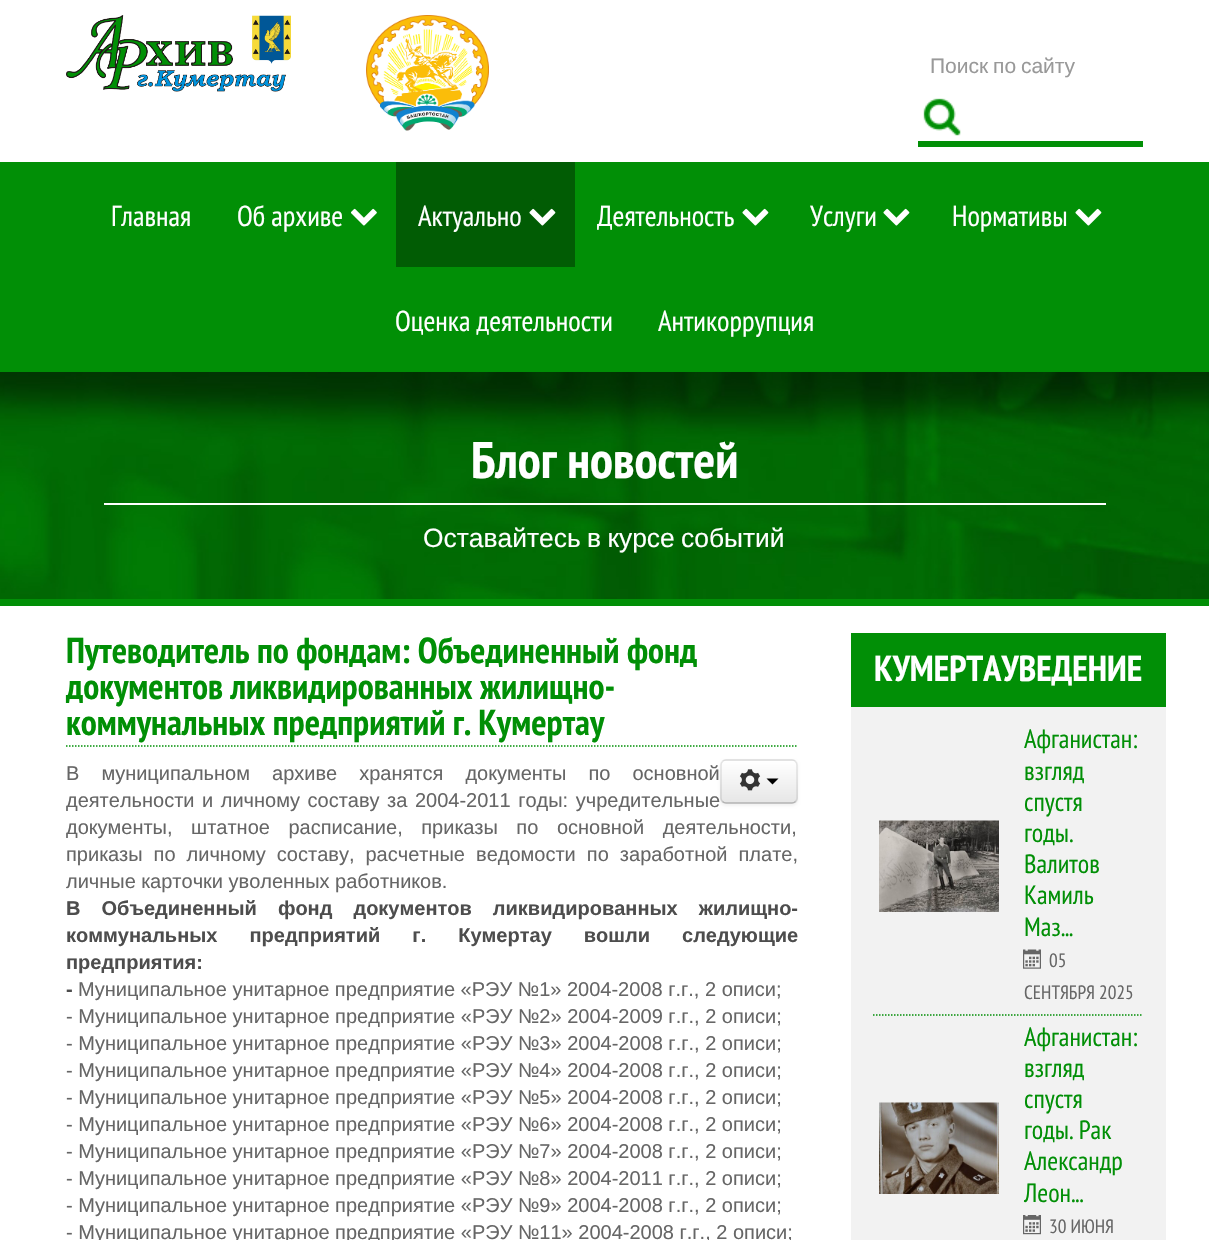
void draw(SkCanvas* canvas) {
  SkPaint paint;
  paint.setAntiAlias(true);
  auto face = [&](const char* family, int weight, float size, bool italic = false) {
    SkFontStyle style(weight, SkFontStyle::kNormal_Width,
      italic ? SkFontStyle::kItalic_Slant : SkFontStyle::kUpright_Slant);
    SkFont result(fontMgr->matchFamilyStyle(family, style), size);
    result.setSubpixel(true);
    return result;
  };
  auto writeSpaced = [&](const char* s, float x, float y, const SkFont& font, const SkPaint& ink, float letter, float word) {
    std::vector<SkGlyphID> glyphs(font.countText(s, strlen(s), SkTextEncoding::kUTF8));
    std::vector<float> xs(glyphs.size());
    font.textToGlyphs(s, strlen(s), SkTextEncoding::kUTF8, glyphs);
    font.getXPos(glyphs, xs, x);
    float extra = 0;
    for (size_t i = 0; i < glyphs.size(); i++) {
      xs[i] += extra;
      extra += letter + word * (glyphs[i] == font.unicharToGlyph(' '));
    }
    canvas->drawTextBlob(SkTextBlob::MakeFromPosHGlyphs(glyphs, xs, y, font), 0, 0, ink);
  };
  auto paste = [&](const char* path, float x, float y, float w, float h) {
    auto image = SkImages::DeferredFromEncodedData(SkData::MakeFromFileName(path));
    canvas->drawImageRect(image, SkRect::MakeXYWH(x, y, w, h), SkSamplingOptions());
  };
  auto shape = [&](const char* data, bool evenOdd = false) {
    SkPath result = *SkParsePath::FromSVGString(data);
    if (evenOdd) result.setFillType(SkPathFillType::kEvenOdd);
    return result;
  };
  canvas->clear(0xffffffff);
  paste("img/1.png", 66, 15, 225, 77);
  paste("img/2.png", 366, 15, 123, 116);
  paint.setColor(0xff018f06);
  canvas->drawRect(SkRect::MakeXYWH(918, 141, 225, 6), paint);
  paste("img/3.png", 923, 98, 38, 38);
  canvas->drawRect(SkRect::MakeXYWH(0, 162, 1209, 210), paint);
  paste("img/4.png", 351, 208, 26, 18);
  paint.setColor(0xff015c04);
  canvas->drawRect(SkRect::MakeXYWH(396, 162, 179, 105), paint);
  paste("img/5.png", 529, 208, 27, 18);
  paste("img/6.png", 742, 208, 27, 18);
  paste("img/6.png", 883, 208, 27, 18);
  paste("img/6.png", 1075, 208, 27, 18);
  paste("img/7.png", 0, 372, 1209, 227);
  paint.setColor(0xff018f06);
  canvas->drawRect(SkRect::MakeXYWH(0, 599, 1209, 7), paint);
  paint.setColor(0xffffffff);
  canvas->drawRect(SkRect::MakeXYWH(104, 503, 1002, 2), paint);
  paint.setStroke(true);
  paint.setStrokeWidth(1.5f);
  paint.setColor(0xff018f06);
  paint.setPathEffect(SkDashPathEffect::Make({{1.5f, 1.5f}}, 0));
  canvas->drawPath(shape("M66 746H798"), paint);
  paint.setPathEffect(nullptr);
  paint.setStroke(false);
  paint.setColor(0x0d000000);
  paint.setMaskFilter(SkMaskFilter::MakeBlur(kNormal_SkBlurStyle, 1.5f));
  canvas->drawRoundRect(SkRect::MakeXYWH(720, 761, 78, 45), 6, 6, paint);
  paint.setMaskFilter(nullptr);
  paint.setColor(0xfff5f5f5);
  canvas->drawRoundRect(SkRect::MakeXYWH(720, 759, 78, 45), 6, 6, paint);
  canvas->save();
  canvas->clipPath(shape("M726 759H792C795.5 759 798 761.5 798 765V798C798 801.5 795.5 804 792 804H726C722.5 804 720 801.5 720 798V765C720 761.5 722.5 759 726 759Z"), true);
  {
    const SkColor colors[] = {0xffffffff, 0xffe6e6e6};
    const float stops[] = {0, 1};
    const SkPoint ends[] = {{759, 761}, {759, 803}};
    paint.setShader(SkGradientShader::MakeLinear(ends, colors, stops, 2, SkTileMode::kClamp));
    paint.setAlpha(255);
  }
  canvas->drawRect(SkRect::MakeXYWH(720, 761, 78, 42), paint);
  canvas->restore();
  paint.setShader(nullptr);
  paint.setColor(0x33ffffff);
  canvas->drawPath(shape("M726 762H792C797 762 796 769 796 772V801C797 800 797 799 797 798V766C797 763 795 761 792 761H727C724 761 722 763 722 766C722 764 724 762 726 762Z"), paint);
  paint.setStroke(true);
  paint.setColor(0xffb3b3b3);
  canvas->drawPath(shape("M795.5 801.5C794.5 802.5 793.5 803 792 803H726C724.5 803 723.5 802.5 722.5 801.5"), paint);
  paint.setColor(0x1a000000);
  canvas->drawPath(shape("M722.5 801.5C721.5 800.5 721 799.5 721 798V765C721 763.5 721.5 762.5 722.5 761.5C723.5 760.5 724.5 760 726 760H792C793.5 760 794.5 760.5 795.5 761.5C796.5 762.5 797 763.5 797 765V798C797 799.5 796.5 800.5 795.5 801.5"), paint);
  paste("img/8.png", 739, 769, 22, 22);
  paint.setStroke(false);
  paint.setColor(0xff000000);
  canvas->drawPath(shape("M766.5 778.5H778.5L772.5 784.5Z"), paint);
  paint.setColor(0xfff2f2f2);
  canvas->drawRect(SkRect::MakeXYWH(851, 707, 315, 533), paint);
  paint.setColor(0xff018f06);
  canvas->drawRect(SkRect::MakeXYWH(851, 633, 315, 74), paint);
  paint.setStroke(true);
  paint.setPathEffect(SkDashPathEffect::Make({{1.5f, 1.5f}}, 0));
  canvas->drawPath(shape("M873 1015H1143"), paint);
  paint.setPathEffect(nullptr);
  paste("img/9.png", 879, 820, 120, 92);
  paste("img/10.png", 1023, 949, 18, 20);
  paste("img/11.png", 879, 1102, 120, 92);
  paste("img/12.png", 1023, 1215, 18, 20);
  auto f0 = face("Liberation Sans", 400, 21);
  paint.setStroke(false);
  paint.setColor(0xff999999);
  writeSpaced("Поиск по сайту", 930, 73, f0, paint, 0, -1);
  auto f1 = face("PT Sans Narrow", 400, 28.75f);
  paint.setColor(0xffffffff);
  {
    const struct { const char* s; float x, y; } items[] = {
      {"Главная", 111, 226},
      {"Об архиве", 237, 226},
      {"Актуально", 418, 226},
      {"Деятельность", 597, 226},
      {"Услуги", 810, 226},
      {"Нормативы", 952, 226},
      {"Оценка деятельности", 395, 331},
      {"Антикоррупция", 658, 331},
    };
    for (auto [s, x, y] : items) {
      canvas->drawString(s, x, y, f1, paint);
    }
  }
  auto f2 = face("PT Sans Narrow", 700, 51.5f);
  canvas->drawString("Блог новостей", 471, 478, f2, paint);
  auto f3 = face("Liberation Sans", 400, 26.4f);
  writeSpaced("Оставайтесь в курсе событий", 423, 547, f3, paint, 0, -1);
  auto f4 = face("PT Sans Narrow", 700, 36);
  paint.setColor(0xff018f06);
  {
    const struct { const char* s; float x, y; } items[] = {
      {"Путеводитель по фондам: Объединенный фонд", 66, 663},
      {"документов ликвидированных жилищно-", 66, 699},
      {"коммунальных предприятий г. Кумертау", 66, 735},
    };
    for (auto [s, x, y] : items) {
      canvas->drawString(s, x, y, f4, paint);
    }
  }
  auto f5 = face("Liberation Sans", 400, 20);
  paint.setColor(0xff666666);
  writeSpaced("В муниципальном архиве хранятся документы по основной", 66, 780, f5, paint, 0, 16.5f);
  writeSpaced("деятельности и личному составу за 2004-2011 годы: учредительные", 66, 807, f5, paint, 0, 2);
  writeSpaced("документы, штатное расписание, приказы по основной деятельности,", 66, 834, f5, paint, 0, 13);
  writeSpaced("приказы по личному составу, расчетные ведомости по заработной плате,", 66, 861, f5, paint, 0, 5.5f);
  canvas->drawString("личные карточки уволенных работников.", 66, 888, f5, paint);
  auto f6 = face("Liberation Sans", 700, 20);
  paint.setColor(0xff4d4d4d);
  writeSpaced("В Объединенный фонд документов ликвидированных жилищно-", 66, 915, f6, paint, 0, 15.5f);
  writeSpaced("коммунальных предприятий г. Кумертау вошли следующие", 66, 942, f6, paint, 0, 26.5f);
  canvas->drawString("предприятия:", 66, 969, f6, paint);
  canvas->drawString("-", 66, 996, f6, paint);
  paint.setColor(0xff666666);
  {
    const struct { const char* s; float x, y; } items[] = {
      {"Муниципальное унитарное предприятие «РЭУ №1» 2004-2008 г.г., 2 описи;", 78, 996},
      {"- Муниципальное унитарное предприятие «РЭУ №2» 2004-2009 г.г., 2 описи;", 66, 1023},
      {"- Муниципальное унитарное предприятие «РЭУ №3» 2004-2008 г.г., 2 описи;", 66, 1050},
      {"- Муниципальное унитарное предприятие «РЭУ №4» 2004-2008 г.г., 2 описи;", 66, 1077},
      {"- Муниципальное унитарное предприятие «РЭУ №5» 2004-2008 г.г., 2 описи;", 66, 1104},
      {"- Муниципальное унитарное предприятие «РЭУ №6» 2004-2008 г.г., 2 описи;", 66, 1131},
      {"- Муниципальное унитарное предприятие «РЭУ №7» 2004-2008 г.г., 2 описи;", 66, 1158},
      {"- Муниципальное унитарное предприятие «РЭУ №8» 2004-2011 г.г., 2 описи;", 66, 1185},
      {"- Муниципальное унитарное предприятие «РЭУ №9» 2004-2008 г.г., 2 описи;", 66, 1212},
      {"- Муниципальное унитарное предприятие «РЭУ №11» 2004-2008 г.г., 2 описи;", 66, 1239},
    };
    for (auto [s, x, y] : items) {
      canvas->drawString(s, x, y, f5, paint);
    }
  }
  paint.setColor(0xffffffff);
  canvas->drawString("КУМЕРТАУВЕДЕНИЕ", 874, 681, f4, paint);
  auto f7 = face("PT Sans Narrow", 400, 26.4f);
  paint.setColor(0xff018f06);
  {
    const struct { const char* s; float x, y; } items[] = {
      {"Афганистан:", 1024, 748},
      {"взгляд", 1024, 780},
      {"спустя", 1024, 811},
      {"годы.", 1024, 842},
      {"Валитов", 1024, 873},
      {"Камиль", 1024, 904},
      {"Маз...", 1024, 936},
    };
    for (auto [s, x, y] : items) {
      canvas->drawString(s, x, y, f7, paint);
    }
  }
  auto f8 = face("PT Sans Narrow", 400, 19.25f);
  paint.setColor(0xff666666);
  canvas->drawString("05", 1049, 967, f8, paint);
  canvas->drawString("СЕНТЯБРЯ 2025", 1024, 999, f8, paint);
  paint.setColor(0xff018f06);
  {
    const struct { const char* s; float x, y; } items[] = {
      {"Афганистан:", 1024, 1046},
      {"взгляд", 1024, 1077},
      {"спустя", 1024, 1108},
      {"годы. Рак", 1024, 1139},
      {"Александр", 1024, 1170},
      {"Леон...", 1024, 1202},
    };
    for (auto [s, x, y] : items) {
      canvas->drawString(s, x, y, f7, paint);
    }
  }
  paint.setColor(0xff666666);
  canvas->drawString("30 ИЮНЯ", 1049, 1233, f8, paint);
}
